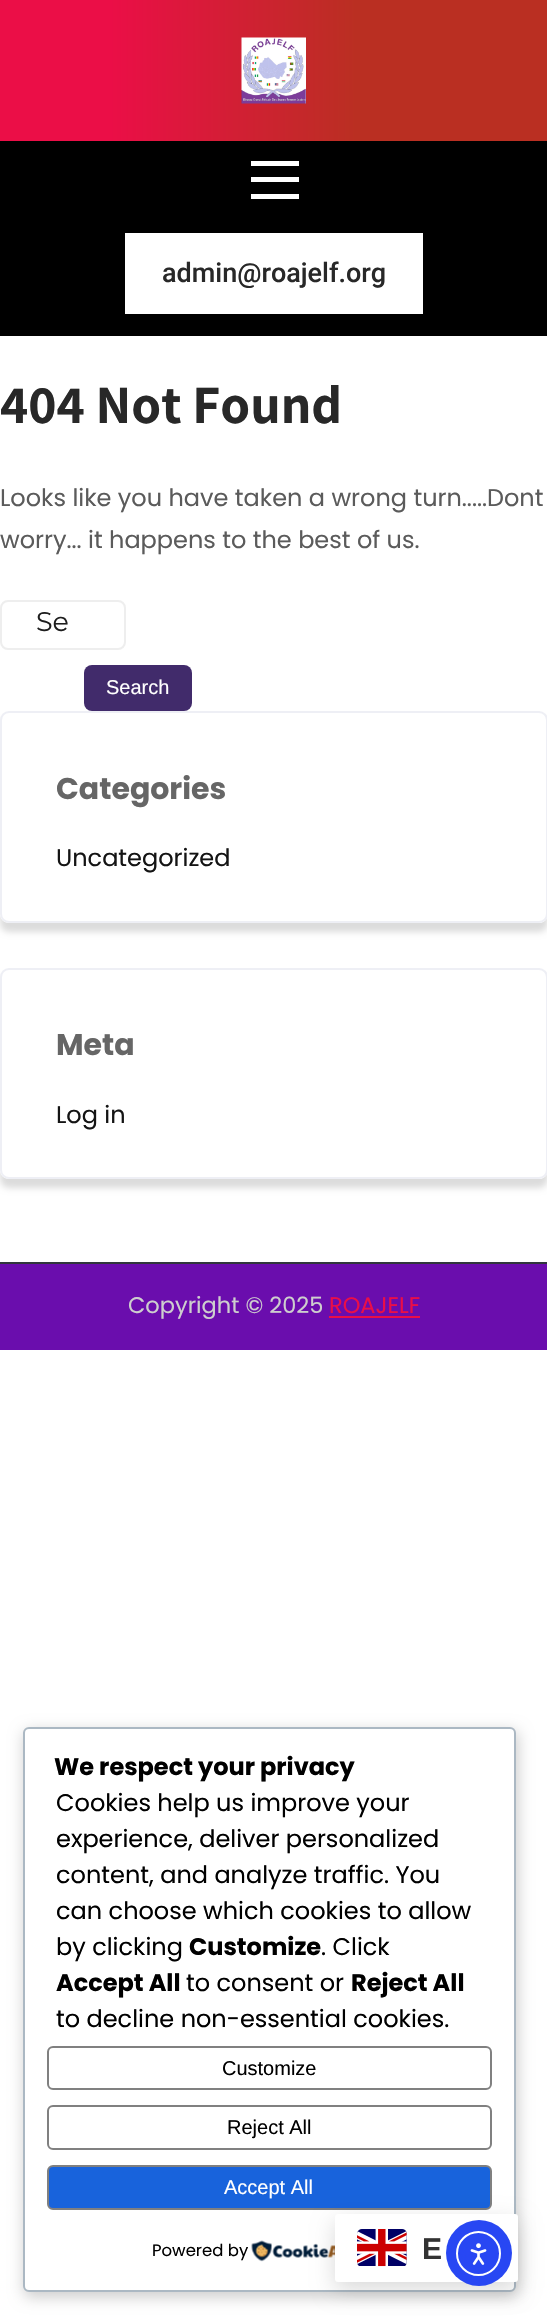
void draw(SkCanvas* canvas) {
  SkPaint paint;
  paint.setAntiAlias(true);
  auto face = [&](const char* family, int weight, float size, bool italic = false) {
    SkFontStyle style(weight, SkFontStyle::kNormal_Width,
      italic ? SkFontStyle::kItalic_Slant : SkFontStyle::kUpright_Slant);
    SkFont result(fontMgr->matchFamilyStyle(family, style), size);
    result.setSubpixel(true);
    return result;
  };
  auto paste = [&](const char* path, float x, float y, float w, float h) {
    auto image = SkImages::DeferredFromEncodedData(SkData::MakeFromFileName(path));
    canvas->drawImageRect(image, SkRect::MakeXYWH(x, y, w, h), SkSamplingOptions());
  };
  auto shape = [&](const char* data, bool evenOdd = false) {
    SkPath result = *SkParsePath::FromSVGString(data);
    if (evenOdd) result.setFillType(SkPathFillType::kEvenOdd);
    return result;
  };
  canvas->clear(0xffffffff);
  paint.setColor(0xff000000);
  canvas->drawRect(SkRect::MakeXYWH(0, 141, 547, 195), paint);
  {
    const SkColor colors[] = {0xffeb0e47, 0xffba2f22};
    const float stops[] = {0.2f, 0.65f};
    const SkPoint ends[] = {{0, 71}, {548, 70}};
    paint.setShader(SkGradientShader::MakeLinear(ends, colors, stops, 2, SkTileMode::kClamp));
    paint.setAlpha(255);
  }
  canvas->drawRect(SkRect::MakeXYWH(0, 0, 547, 141), paint);
  paste("img/1.png", 241, 37, 65, 67);
  paint.setShader(nullptr);
  {
    const struct { float x, y, w, h; SkColor color; } items[] = {
      {251, 161, 48, 5, 0xffffffff},
      {251, 177, 48, 5, 0xffffffff},
      {251, 194, 48, 5, 0xffffffff},
      {125, 233, 298, 81, 0xffffffff},
    };
    for (auto [x, y, w, h, color] : items) {
      paint.setColor(color);
      canvas->drawRect(SkRect::MakeXYWH(x, y, w, h), paint);
    }
  }
  paint.setStroke(true);
  paint.setStrokeWidth(2);
  paint.setColor(0xffeeeeee);
  canvas->drawRoundRect(SkRect::MakeXYWH(1, 601, 124, 48), 7, 7, paint);
  paint.setStroke(false);
  paint.setColor(0xff412b6b);
  canvas->drawRoundRect(SkRect::MakeXYWH(84, 665, 108, 46), 8, 8, paint);
  canvas->save();
  canvas->clipPath(shape("M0 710H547V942H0ZM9 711H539C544 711 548 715 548 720V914C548 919 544 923 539 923H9C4 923 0 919 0 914V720C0 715 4 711 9 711Z", true), true);
  paint.setColor(0xffdcdcdc);
  paint.setMaskFilter(SkMaskFilter::MakeBlur(kNormal_SkBlurStyle, 3));
  canvas->drawRoundRect(SkRect::MakeXYWH(0, 720, 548, 212), 9, 9, paint);
  paint.setMaskFilter(nullptr);
  canvas->restore();
  paint.setStroke(true);
  paint.setColor(0xffeeeff5);
  canvas->drawRoundRect(SkRect::MakeXYWH(1, 712, 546, 210), 8, 8, paint);
  canvas->save();
  canvas->clipPath(shape("M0 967H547V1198H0ZM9 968H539C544 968 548 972 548 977V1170C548 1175 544 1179 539 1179H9C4 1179 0 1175 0 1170V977C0 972 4 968 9 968Z", true), true);
  paint.setStroke(false);
  paint.setColor(0xffdcdcdc);
  paint.setMaskFilter(SkMaskFilter::MakeBlur(kNormal_SkBlurStyle, 3));
  canvas->drawRoundRect(SkRect::MakeXYWH(0, 977, 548, 211), 9, 9, paint);
  paint.setMaskFilter(nullptr);
  canvas->restore();
  paint.setStroke(true);
  paint.setColor(0xffeeeff5);
  canvas->drawRoundRect(SkRect::MakeXYWH(1, 969, 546, 209), 8, 8, paint);
  paint.setStroke(false);
  {
    const struct { float x, y, w, h; SkColor color; } items[] = {
      {0, 1264, 547, 86, 0xff6a0dad},
      {0, 1262, 547, 2, 0xff31363d},
      {329, 1316, 91, 2, 0xffeb0e47},
    };
    for (auto [x, y, w, h, color] : items) {
      paint.setColor(color);
      canvas->drawRect(SkRect::MakeXYWH(x, y, w, h), paint);
    }
  }
  paint.setColor(0x33000000);
  paint.setMaskFilter(SkMaskFilter::MakeBlur(kNormal_SkBlurStyle, 7.5f));
  canvas->drawRoundRect(SkRect::MakeXYWH(24, 1731, 494, 566), 6, 6, paint);
  paint.setMaskFilter(nullptr);
  paint.setColor(0xffffffff);
  canvas->drawRoundRect(SkRect::MakeXYWH(24, 1728, 491, 563), 5, 5, paint);
  paint.setStroke(true);
  paint.setColor(0xffabb8c3);
  canvas->drawRoundRect(SkRect::MakeXYWH(24, 1728, 491, 563), 5, 5, paint);
  paint.setColor(0xff808080);
  canvas->drawRoundRect(SkRect::MakeXYWH(48, 2047, 443, 42), 5, 5, paint);
  canvas->drawRoundRect(SkRect::MakeXYWH(48, 2106, 443, 43), 5, 5, paint);
  paint.setStroke(false);
  paint.setColor(0xff1863dc);
  canvas->drawRoundRect(SkRect::MakeXYWH(48, 2166, 443, 43), 5, 5, paint);
  paint.setStroke(true);
  paint.setColor(0xff808080);
  canvas->drawRoundRect(SkRect::MakeXYWH(48, 2166, 443, 43), 5, 5, paint);
  paste("img/2.png", 251, 2240, 84, 22);
  paint.setStroke(false);
  paint.setColor(0x26000000);
  paint.setMaskFilter(SkMaskFilter::MakeBlur(kNormal_SkBlurStyle, 11));
  canvas->drawRoundRect(SkRect::MakeXYWH(335, 2222, 183, 67), 3, 3, paint);
  paint.setMaskFilter(nullptr);
  paint.setColor(0xffffffff);
  canvas->drawRoundRect(SkRect::MakeXYWH(335, 2214, 183, 68), 3, 3, paint);
  paste("img/3.png", 357, 2229, 50, 38);
  paint.setColor(0xff2847f3);
  canvas->drawCircle(479, 2253, 33, paint);
  paint.setStroke(true);
  paint.setColor(0xffffffff);
  canvas->drawCircle(478.5f, 2253.5f, 21.5f, paint);
  paste("img/4.png", 470, 2243, 17, 22);
  auto f0 = face("Roboto", 500, 27);
  paint.setStroke(false);
  paint.setColor(0xff282828);
  canvas->drawString("admin@roajelf.org", 162, 282, f0, paint);
  auto f1 = face("Assistant", 700, 54);
  canvas->drawString("404 Not Found", 0, 423, f1, paint);
  auto f2 = face("Poppins", 400, 24);
  paint.setColor(0xff5b5b5b);
  canvas->drawString("Looks like you have taken a wrong turn.....Dont", 0, 506, f2, paint);
  canvas->drawString("worry... it happens to the best of us.", 0, 548, f2, paint);
  auto f3 = face("Montserrat", 400, 27);
  paint.setColor(0xff1e1e1e);
  canvas->drawString("Se", 36, 631, f3, paint);
  auto f4 = face("Liberation Sans", 400, 20);
  paint.setColor(0xffffffff);
  canvas->drawString("Search", 106, 694, f4, paint);
  auto f5 = face("Poppins", 700, 30);
  paint.setColor(0xff666666);
  canvas->drawString("Categories", 56, 799, f5, paint);
  paint.setColor(0xff141414);
  canvas->drawString("Uncategorized", 56, 866, f2, paint);
  paint.setColor(0xff666666);
  canvas->drawString("Meta", 56, 1055, f5, paint);
  paint.setColor(0xff141414);
  canvas->drawString("Log in", 56, 1123, f2, paint);
  auto f6 = face("Poppins", 400, 22.5f);
  paint.setColor(0xffcecece);
  canvas->drawString("Copyright © 2025", 128, 1313, f6, paint);
  paint.setColor(0xffeb0e47);
  canvas->drawString("ROAJELF", 329, 1313, f6, paint);
  auto f7 = face("Poppins", 700, 24);
  paint.setColor(0xff000000);
  canvas->drawString("We respect your privacy", 54, 1775, f7, paint);
  {
    const struct { const char* s; float x, y; } items[] = {
      {"Cookies help us improve your", 56, 1811},
      {"experience, deliver personalized", 56, 1847},
      {"content, and analyze traffic. You", 56, 1883},
      {"can choose which cookies to allow", 56, 1919},
      {"by clicking", 56, 1955},
    };
    for (auto [s, x, y] : items) {
      canvas->drawString(s, x, y, f2, paint);
    }
  }
  canvas->drawString("Customize", 189, 1955, f7, paint);
  canvas->drawString(". Click", 321, 1955, f2, paint);
  canvas->drawString("Accept All", 56, 1991, f7, paint);
  canvas->drawString("to consent or", 186, 1991, f2, paint);
  canvas->drawString("Reject All", 351, 1991, f7, paint);
  canvas->drawString("to decline non-essential cookies.", 56, 2027, f2, paint);
  canvas->drawString("Customize", 222, 2075, f4, paint);
  canvas->drawString("Reject All", 227, 2134, f4, paint);
  paint.setColor(0xffffffff);
  canvas->drawString("Accept All", 224, 2194, f4, paint);
  auto f8 = face("Poppins", 400, 16.5f);
  paint.setColor(0xff000000);
  canvas->drawString("Powered by", 152, 2256, f8, paint);
  auto f9 = face("Liberation Sans", 700, 30);
  paint.setColor(0xff333333);
  canvas->drawString("E", 422, 2259, f9, paint);
}
